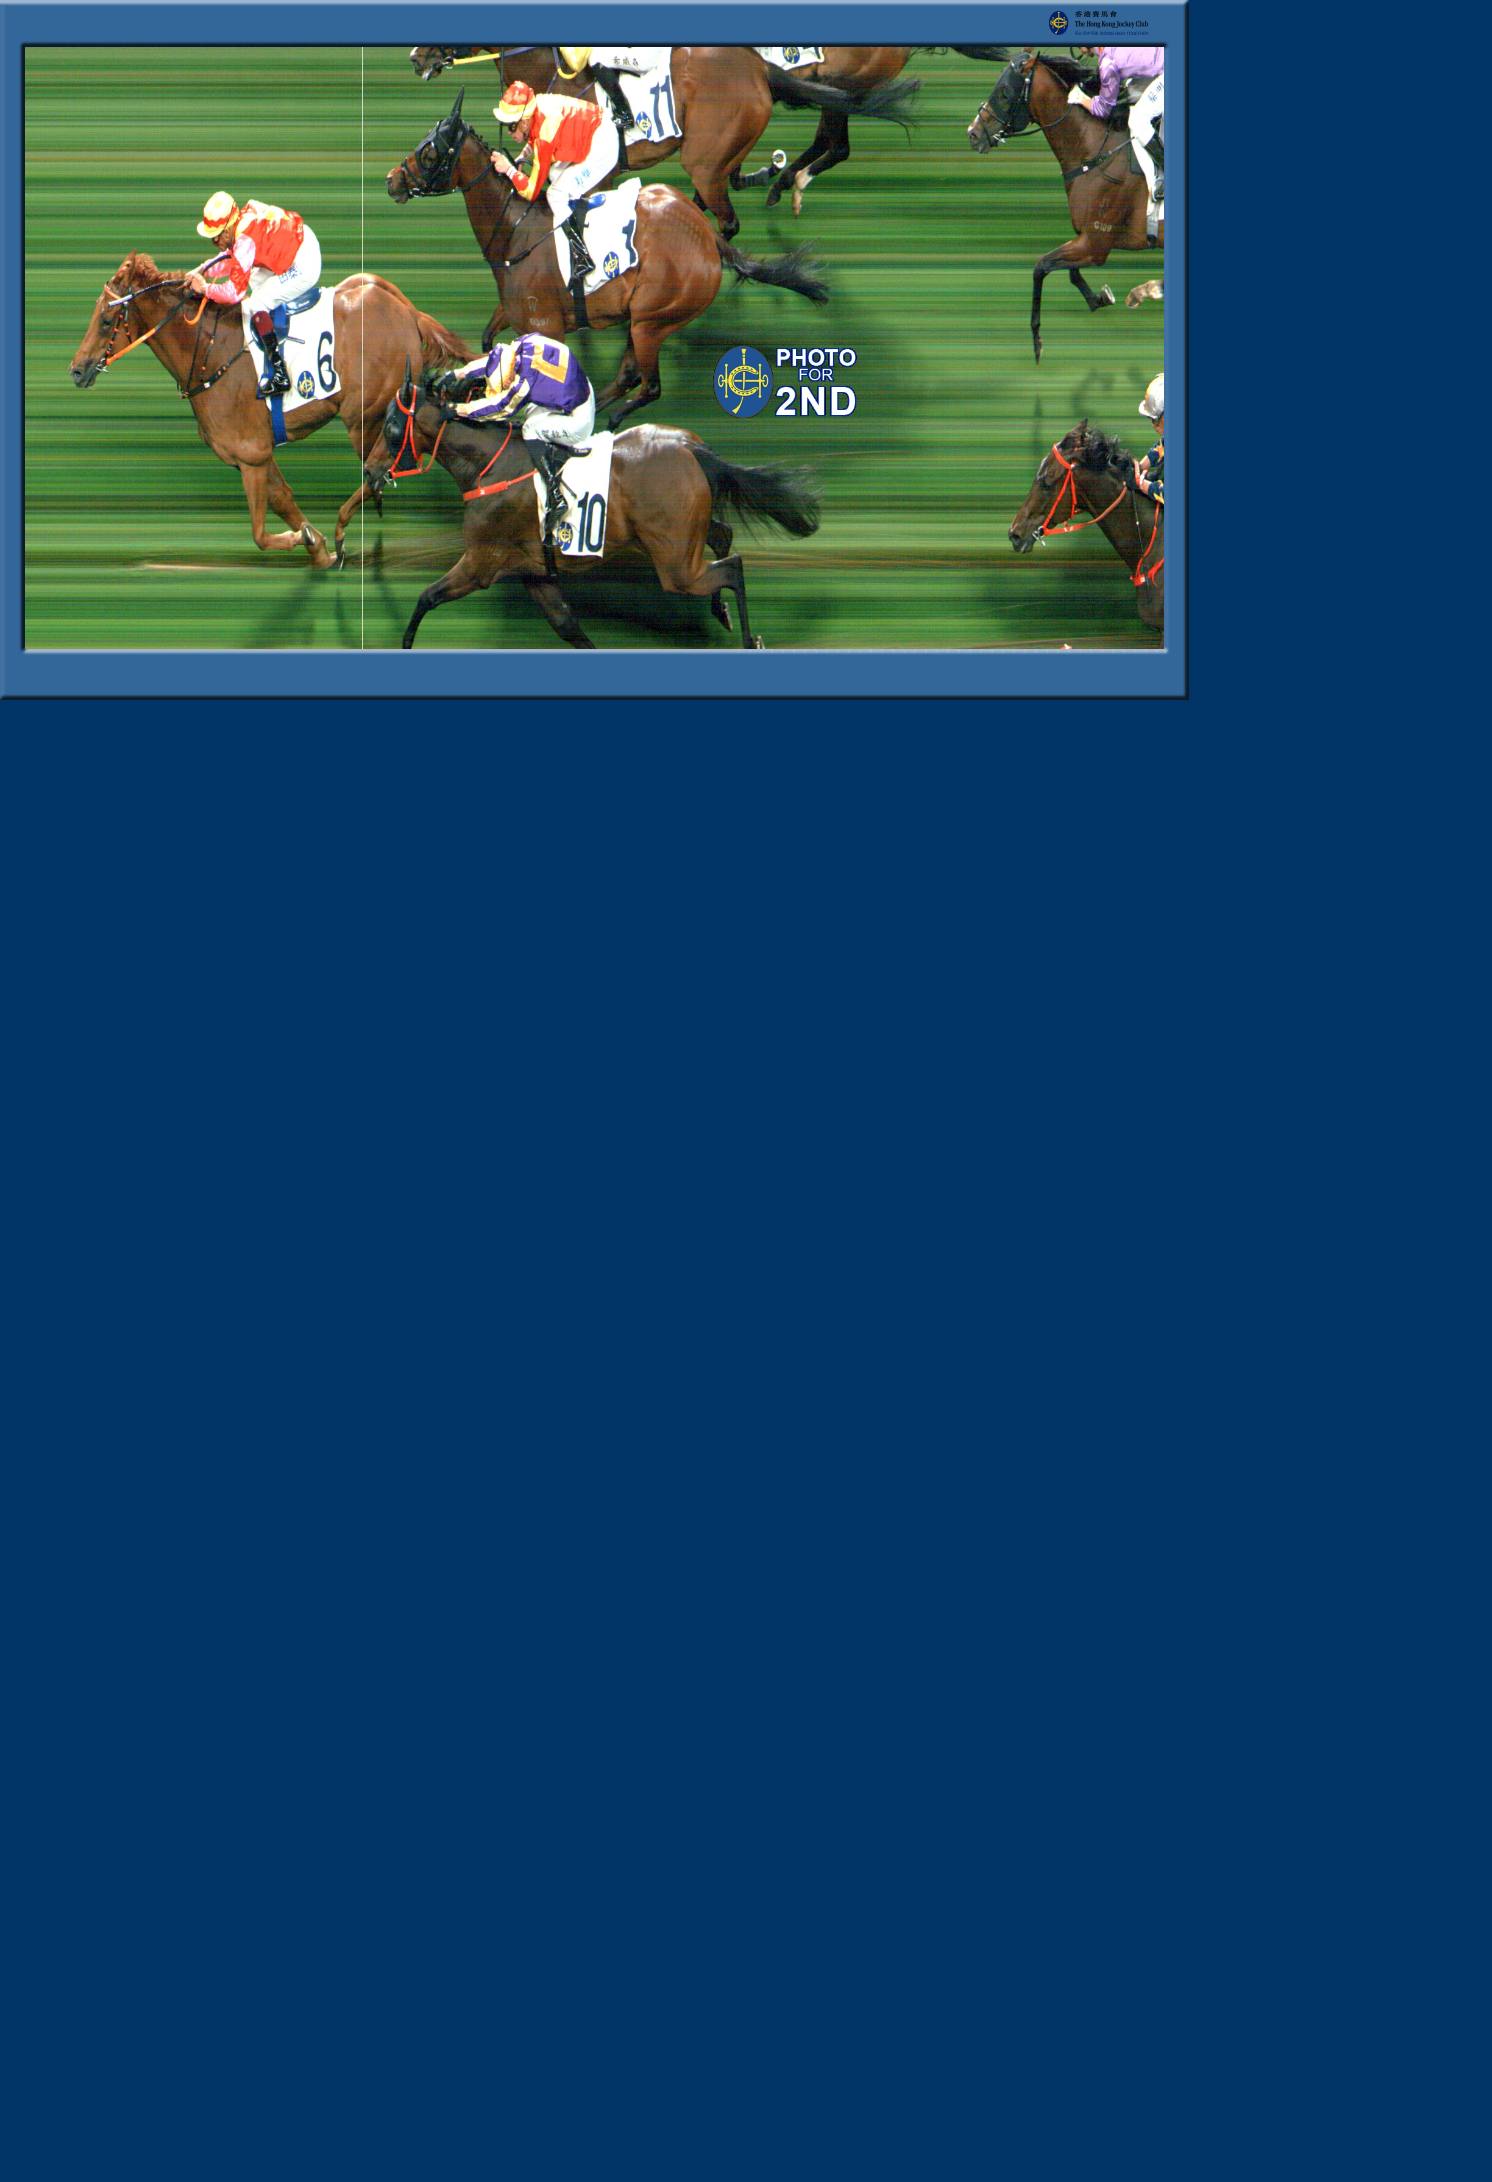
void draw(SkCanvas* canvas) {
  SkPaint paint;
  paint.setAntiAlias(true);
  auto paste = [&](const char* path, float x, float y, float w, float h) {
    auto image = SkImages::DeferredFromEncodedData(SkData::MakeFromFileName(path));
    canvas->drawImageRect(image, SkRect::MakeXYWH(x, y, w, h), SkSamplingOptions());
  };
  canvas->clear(0xff003366);
  paste("img/1.png", 0, 0, 25, 47);
  paste("img/2.png", 0, 6, 24, 41);
  paste("img/3.png", 25, 0, 1139, 47);
  paste("img/4.png", 456, 11, 705, 36);
  paste("img/5.png", 1164, 0, 25, 47);
  paste("img/6.png", 0, 47, 25, 602);
  paste("img/7.png", 25, 47, 1139, 602);
  paste("img/8.png", 1164, 47, 25, 602);
  paste("img/9.png", 0, 649, 25, 6);
  paste("img/10.png", 25, 649, 1139, 6);
  paste("img/11.png", 25, 649, 704, 5);
  paste("img/12.png", 1164, 649, 25, 6);
  paste("img/13.png", 0, 655, 25, 38);
  paint.setColor(0xff336699);
  canvas->drawRect(SkRect::MakeXYWH(25, 655, 1139, 38), paint);
  paste("img/14.png", 1164, 655, 25, 38);
  paste("img/15.png", 0, 693, 25, 7);
  paste("img/16.png", 25, 693, 1139, 7);
  paste("img/17.png", 1164, 693, 25, 7);
  paste("img/18.png", 1183, 693, 6, 5);
}
